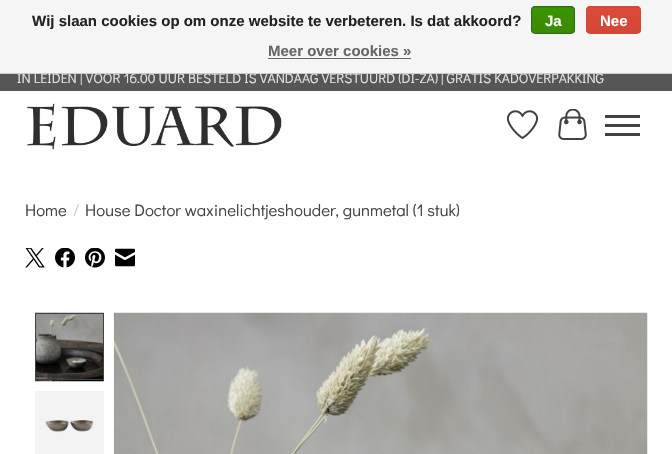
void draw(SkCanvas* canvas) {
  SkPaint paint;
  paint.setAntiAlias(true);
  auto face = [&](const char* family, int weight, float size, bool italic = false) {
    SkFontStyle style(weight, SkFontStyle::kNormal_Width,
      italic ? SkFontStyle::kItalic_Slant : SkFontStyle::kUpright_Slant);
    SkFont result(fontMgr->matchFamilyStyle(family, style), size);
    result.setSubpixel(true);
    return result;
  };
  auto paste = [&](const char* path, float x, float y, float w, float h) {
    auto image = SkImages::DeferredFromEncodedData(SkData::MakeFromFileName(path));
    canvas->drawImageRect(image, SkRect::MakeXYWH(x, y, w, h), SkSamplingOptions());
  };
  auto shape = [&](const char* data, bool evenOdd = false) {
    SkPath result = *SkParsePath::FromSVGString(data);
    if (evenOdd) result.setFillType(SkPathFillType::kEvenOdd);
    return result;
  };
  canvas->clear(0xffffffff);
  paint.setColor(0xff565656);
  canvas->drawRect(SkRect::MakeXYWH(0, 74, 672, 17), paint);
  paste("img/1.png", 27, 103, 255, 47);
  paste("img/2.png", 506, 110, 33, 29);
  paste("img/3.png", 558, 109, 29, 31);
  {
    const struct { float x, y, w, h; SkColor color; } items[] = {
      {605, 124, 35, 3, 0xff414141},
      {605, 115, 35, 3, 0xff414141},
      {605, 133, 35, 3, 0xff414141},
    };
    for (auto [x, y, w, h, color] : items) {
      paint.setColor(color);
      canvas->drawRect(SkRect::MakeXYWH(x, y, w, h), paint);
    }
  }
  paste("img/4.png", 25, 248, 20, 20);
  paste("img/5.png", 55, 248, 20, 20);
  paste("img/6.png", 85, 248, 20, 20);
  paste("img/7.png", 115, 248, 20, 19);
  paste("img/8.png", 35, 312, 69, 70);
  paint.setStroke(true);
  paint.setStrokeWidth(1);
  canvas->drawRect(SkRect::MakeXYWH(35.5f, 313.5f, 68, 66), paint);
  paste("img/9.png", 35, 391, 69, 63);
  paste("img/10.png", 113, 312, 535, 142);
  auto f0 = face("Didact Gothic", 400, 13.9f);
  paint.setStroke(false);
  paint.setColor(0xffe4e4e4);
  canvas->drawString("IN LEIDEN | VOOR 16.00 UUR BESTELD IS VANDAAG VERSTUURD (DI-ZA) | GRATIS KADOVERPAKKING", 17, 83, f0, paint);
  paint.setColor(0xfff5f5f5);
  canvas->drawRect(SkRect::MakeXYWH(0, 0, 672, 73), paint);
  auto f1 = face("Liberation Sans", 700, 15);
  paint.setColor(0xff666666);
  canvas->drawString("Meer over cookies »", 268, 56, f1, paint);
  canvas->drawRect(SkRect::MakeXYWH(268, 58, 143, 1), paint);
  canvas->save();
  canvas->clipPath(shape("M590 6H637C639 6 641 8 641 10V30C641 32 639 34 637 34H590C588 34 586 32 586 30V10C586 8 588 6 590 6Z"), true);
  {
    const SkColor colors[] = {0xffdc4a38, 0xffd14836};
    const float stops[] = {0, 1};
    const SkPoint ends[] = {{614, 7.5f}, {614, 33}};
    paint.setShader(SkGradientShader::MakeLinear(ends, colors, stops, 2, SkTileMode::kClamp));
    paint.setAlpha(255);
  }
  canvas->drawRect(SkRect::MakeXYWH(586, 8, 55, 25), paint);
  {
    const SkColor colors[] = {0xffdc4a38, 0xffd14836};
    const float stops[] = {0, 1};
    const SkPoint ends[] = {{614, -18}, {614, 7.5f}};
    paint.setShader(SkGradientShader::MakeLinear(ends, colors, stops, 2, SkTileMode::kClamp));
    paint.setAlpha(255);
  }
  canvas->drawRect(SkRect::MakeXYWH(586, 6, 55, 2), paint);
  canvas->restore();
  paint.setStroke(true);
  paint.setShader(nullptr);
  paint.setColor(0xffd14836);
  canvas->drawRoundRect(SkRect::MakeXYWH(586.5f, 6.5f, 54, 27), 3.5f, 3.5f, paint);
  paint.setStroke(false);
  paint.setColor(0xffffffff);
  canvas->drawString("Nee", 600, 26, f1, paint);
  canvas->save();
  canvas->clipPath(shape("M535 6H571C573 6 575 8 575 10V30C575 32 573 34 571 34H535C533 34 531 32 531 30V10C531 8 533 6 535 6Z"), true);
  {
    const SkColor colors[] = {0xff3c9300, 0xff398a00};
    const float stops[] = {0, 1};
    const SkPoint ends[] = {{553, 7.5f}, {553, 33}};
    paint.setShader(SkGradientShader::MakeLinear(ends, colors, stops, 2, SkTileMode::kClamp));
    paint.setAlpha(255);
  }
  canvas->drawRect(SkRect::MakeXYWH(531, 8, 44, 25), paint);
  {
    const SkColor colors[] = {0xff3c9300, 0xff398a00};
    const float stops[] = {0, 1};
    const SkPoint ends[] = {{553, -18}, {553, 7.5f}};
    paint.setShader(SkGradientShader::MakeLinear(ends, colors, stops, 2, SkTileMode::kClamp));
    paint.setAlpha(255);
  }
  canvas->drawRect(SkRect::MakeXYWH(531, 6, 44, 2), paint);
  canvas->restore();
  paint.setStroke(true);
  paint.setShader(nullptr);
  paint.setColor(0xff29691d);
  canvas->drawRoundRect(SkRect::MakeXYWH(531.5f, 6.5f, 43, 27), 3.5f, 3.5f, paint);
  paint.setStroke(false);
  paint.setColor(0xffffffff);
  canvas->drawString("Ja", 545, 26, f1, paint);
  paint.setColor(0xff222222);
  canvas->drawString("Wij slaan cookies op om onze website te verbeteren. Is dat akkoord?", 32, 26, f1, paint);
  paint.setColor(0xffcccccc);
  canvas->drawRect(SkRect::MakeXYWH(0, 73, 672, 1), paint);
  auto f2 = face("Didact Gothic", 400, 16.7f);
  paint.setColor(0xff414141);
  canvas->drawString("Home", 25, 216, f2, paint);
  paint.setColor(0xffc6c6c6);
  canvas->drawString("/", 73, 216, f2, paint);
  paint.setColor(0xff414141);
  canvas->drawString("House Doctor waxinelichtjeshouder, gunmetal (1 stuk)", 85, 216, f2, paint);
}
